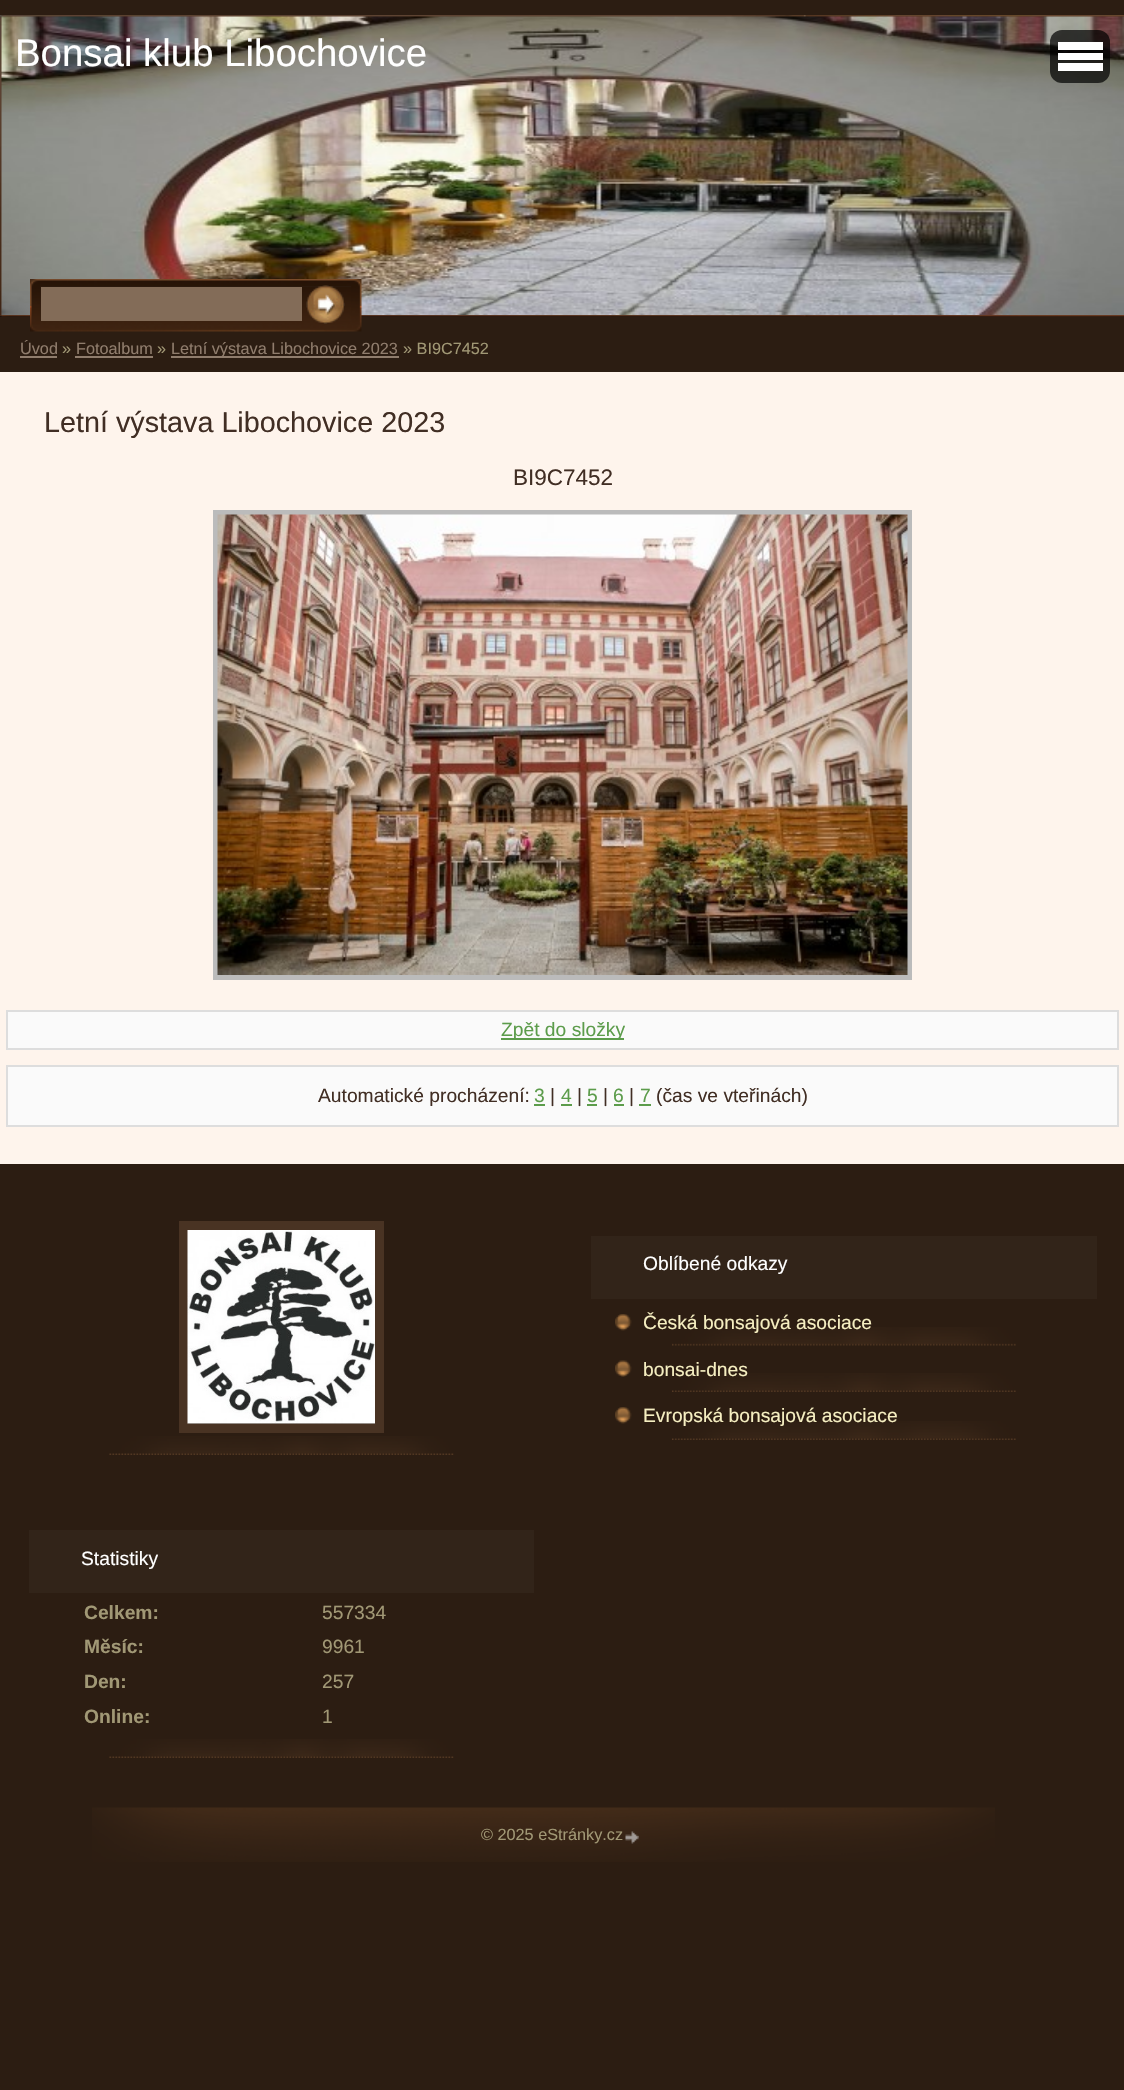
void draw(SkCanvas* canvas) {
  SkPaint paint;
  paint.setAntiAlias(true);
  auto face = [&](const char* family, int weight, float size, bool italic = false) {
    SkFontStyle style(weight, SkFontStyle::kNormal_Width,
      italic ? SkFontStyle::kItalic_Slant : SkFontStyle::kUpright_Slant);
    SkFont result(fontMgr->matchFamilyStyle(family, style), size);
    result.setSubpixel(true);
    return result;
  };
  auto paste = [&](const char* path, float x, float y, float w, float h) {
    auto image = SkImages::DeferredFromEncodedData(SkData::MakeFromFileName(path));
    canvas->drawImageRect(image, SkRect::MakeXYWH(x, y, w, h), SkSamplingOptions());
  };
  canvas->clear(0xff2c1d12);
  paint.setColor(0xff000000);
  canvas->drawRect(SkRect::MakeXYWH(0, 316, 1124, 1), paint);
  paste("img/1.png", 0, 15, 1124, 302);
  paste("img/2.png", 1, 16, 1123, 299);
  paint.setColor(0xb3000000);
  canvas->drawRoundRect(SkRect::MakeXYWH(1050, 30, 60, 53), 12, 12, paint);
  {
    const struct { float x, y, w, h; SkColor color; } items[] = {
      {1058, 42, 45, 8, 0xffffffff},
      {1058, 53, 45, 7, 0xffffffff},
      {1058, 63, 45, 8, 0xffffffff},
      {20, 356, 37, 2, 0xff907d6d},
      {75, 356, 78, 2, 0xff907d6d},
      {171, 356, 228, 2, 0xff907d6d},
      {0, 372, 1124, 792, 0xfffef4ec},
    };
    for (auto [x, y, w, h, color] : items) {
      paint.setColor(color);
      canvas->drawRect(SkRect::MakeXYWH(x, y, w, h), paint);
    }
  }
  paint.setStroke(true);
  paint.setStrokeWidth(5);
  paint.setColor(0xffbbbbbb);
  canvas->drawRect(SkRect::MakeXYWH(215.5f, 512.5f, 694, 465), paint);
  paste("img/3.png", 217, 514, 691, 461);
  paint.setStroke(false);
  paint.setColor(0xfffafafa);
  canvas->drawRect(SkRect::MakeXYWH(7, 1011, 1111, 38), paint);
  paint.setStroke(true);
  paint.setStrokeWidth(2);
  paint.setColor(0xffdddddd);
  canvas->drawRect(SkRect::MakeXYWH(7, 1011, 1111, 38), paint);
  paint.setStroke(false);
  paint.setColor(0xff5c9c4b);
  canvas->drawRect(SkRect::MakeXYWH(501, 1038, 123, 2), paint);
  paint.setColor(0xfffafafa);
  canvas->drawRect(SkRect::MakeXYWH(7, 1066, 1111, 60), paint);
  paint.setStroke(true);
  paint.setColor(0xffdddddd);
  canvas->drawRect(SkRect::MakeXYWH(7, 1066, 1111, 60), paint);
  paint.setStroke(false);
  {
    const struct { float x, y, w, h; SkColor color; } items[] = {
      {534, 1104, 11, 2, 0xff5c9c4b},
      {561, 1104, 11, 2, 0xff5c9c4b},
      {587, 1104, 10, 2, 0xff5c9c4b},
      {614, 1104, 10, 2, 0xff5c9c4b},
      {639, 1104, 12, 2, 0xff5c9c4b},
    };
    for (auto [x, y, w, h, color] : items) {
      paint.setColor(color);
      canvas->drawRect(SkRect::MakeXYWH(x, y, w, h), paint);
    }
  }
  paste("img/4.png", 30, 279, 332, 53);
  paste("img/5.png", 40, 286, 311, 35);
  paste("img/6.png", 40, 287, 311, 34);
  paint.setColor(0xff836c58);
  canvas->drawRect(SkRect::MakeXYWH(41, 287, 261, 34), paint);
  paste("img/7.png", 306, 285, 39, 39);
  paste("img/8.png", 109, 1436, 345, 19);
  paint.setStroke(true);
  paint.setStrokeWidth(9);
  paint.setColor(0xff493323);
  canvas->drawRect(SkRect::MakeXYWH(183.5f, 1225.5f, 196, 203), paint);
  paste("img/9.png", 187, 1230, 188, 194);
  paint.setStroke(false);
  paint.setColor(0xff322419);
  canvas->drawRect(SkRect::MakeXYWH(591, 1236, 506, 63), paint);
  paste("img/10.png", 672, 1421, 344, 19);
  paste("img/11.png", 672, 1327, 344, 19);
  paste("img/12.png", 615, 1314, 17, 17);
  paste("img/10.png", 672, 1373, 344, 19);
  paste("img/13.png", 615, 1360, 17, 17);
  paste("img/12.png", 615, 1407, 17, 17);
  canvas->drawRect(SkRect::MakeXYWH(29, 1530, 505, 63), paint);
  paste("img/8.png", 109, 1739, 345, 19);
  paste("img/14.png", 92, 1807, 903, 55);
  paste("img/15.png", 625, 1831, 14, 13);
  auto f0 = face("Liberation Sans", 400, 38.4f);
  paint.setColor(0xffffffff);
  canvas->drawString("Bonsai klub Libochovice", 15, 66, f0, paint);
  auto f1 = face("Liberation Sans", 400, 16.25f);
  paint.setColor(0xff907d6d);
  canvas->drawString("Úvod", 20, 354, f1, paint);
  paint.setColor(0xffa19875);
  canvas->drawString("»", 62, 354, f1, paint);
  paint.setColor(0xff907d6d);
  canvas->drawString("Fotoalbum", 76, 354, f1, paint);
  paint.setColor(0xffa19875);
  canvas->drawString("»", 157, 354, f1, paint);
  paint.setColor(0xff907d6d);
  canvas->drawString("Letní výstava Libochovice 2023", 171, 354, f1, paint);
  paint.setColor(0xffa19875);
  canvas->drawString("» BI9C7452", 403, 354, f1, paint);
  auto f2 = face("Liberation Sans", 400, 28.75f);
  paint.setColor(0xff412e24);
  canvas->drawString("Letní výstava Libochovice 2023", 44, 432, f2, paint);
  auto f3 = face("Liberation Sans", 400, 22.5f);
  canvas->drawString("BI9C7452", 513, 485, f3, paint);
  auto f4 = face("Liberation Sans", 400, 19.25f);
  paint.setColor(0xff5c9c4b);
  canvas->drawString("Zpět do složky", 501, 1036, f4, paint);
  paint.setColor(0xff412e24);
  canvas->drawString("Automatické procházení:", 318, 1102, f4, paint);
  paint.setColor(0xff5c9c4b);
  canvas->drawString("3", 534, 1102, f4, paint);
  paint.setColor(0xff412e24);
  canvas->drawString("|", 550, 1102, f4, paint);
  paint.setColor(0xff5c9c4b);
  canvas->drawString("4", 561, 1102, f4, paint);
  paint.setColor(0xff412e24);
  canvas->drawString("|", 577, 1102, f4, paint);
  paint.setColor(0xff5c9c4b);
  canvas->drawString("5", 587, 1102, f4, paint);
  paint.setColor(0xff412e24);
  canvas->drawString("|", 603, 1102, f4, paint);
  paint.setColor(0xff5c9c4b);
  canvas->drawString("6", 613, 1102, f4, paint);
  paint.setColor(0xff412e24);
  canvas->drawString("|", 629, 1102, f4, paint);
  paint.setColor(0xff5c9c4b);
  canvas->drawString("7", 640, 1102, f4, paint);
  paint.setColor(0xff412e24);
  canvas->drawString("(čas ve vteřinách)", 656, 1102, f4, paint);
  paint.setColor(0xffffffff);
  canvas->drawString("Oblíbené odkazy", 643, 1270, f4, paint);
  paint.setColor(0xfff6efc1);
  {
    const struct { const char* s; float x, y; } items[] = {
      {"Česká bonsajová asociace", 643, 1329},
      {"bonsai-dnes", 643, 1376},
      {"Evropská bonsajová asociace", 643, 1422},
    };
    for (auto [s, x, y] : items) {
      canvas->drawString(s, x, y, f4, paint);
    }
  }
  paint.setColor(0xffffffff);
  canvas->drawString("Statistiky", 81, 1565, f4, paint);
  auto f5 = face("Liberation Sans", 700, 19.25f);
  paint.setColor(0xffa19875);
  canvas->drawString("Celkem:", 84, 1619, f5, paint);
  canvas->drawString("557334", 322, 1619, f4, paint);
  canvas->drawString("Měsíc:", 84, 1653, f5, paint);
  canvas->drawString("9961", 322, 1653, f4, paint);
  canvas->drawString("Den:", 84, 1688, f5, paint);
  canvas->drawString("257", 322, 1688, f4, paint);
  canvas->drawString("Online:", 84, 1723, f5, paint);
  canvas->drawString("1", 322, 1723, f4, paint);
  canvas->drawString("© 2025 eStránky.cz", 481, 1840, f1, paint);
}
